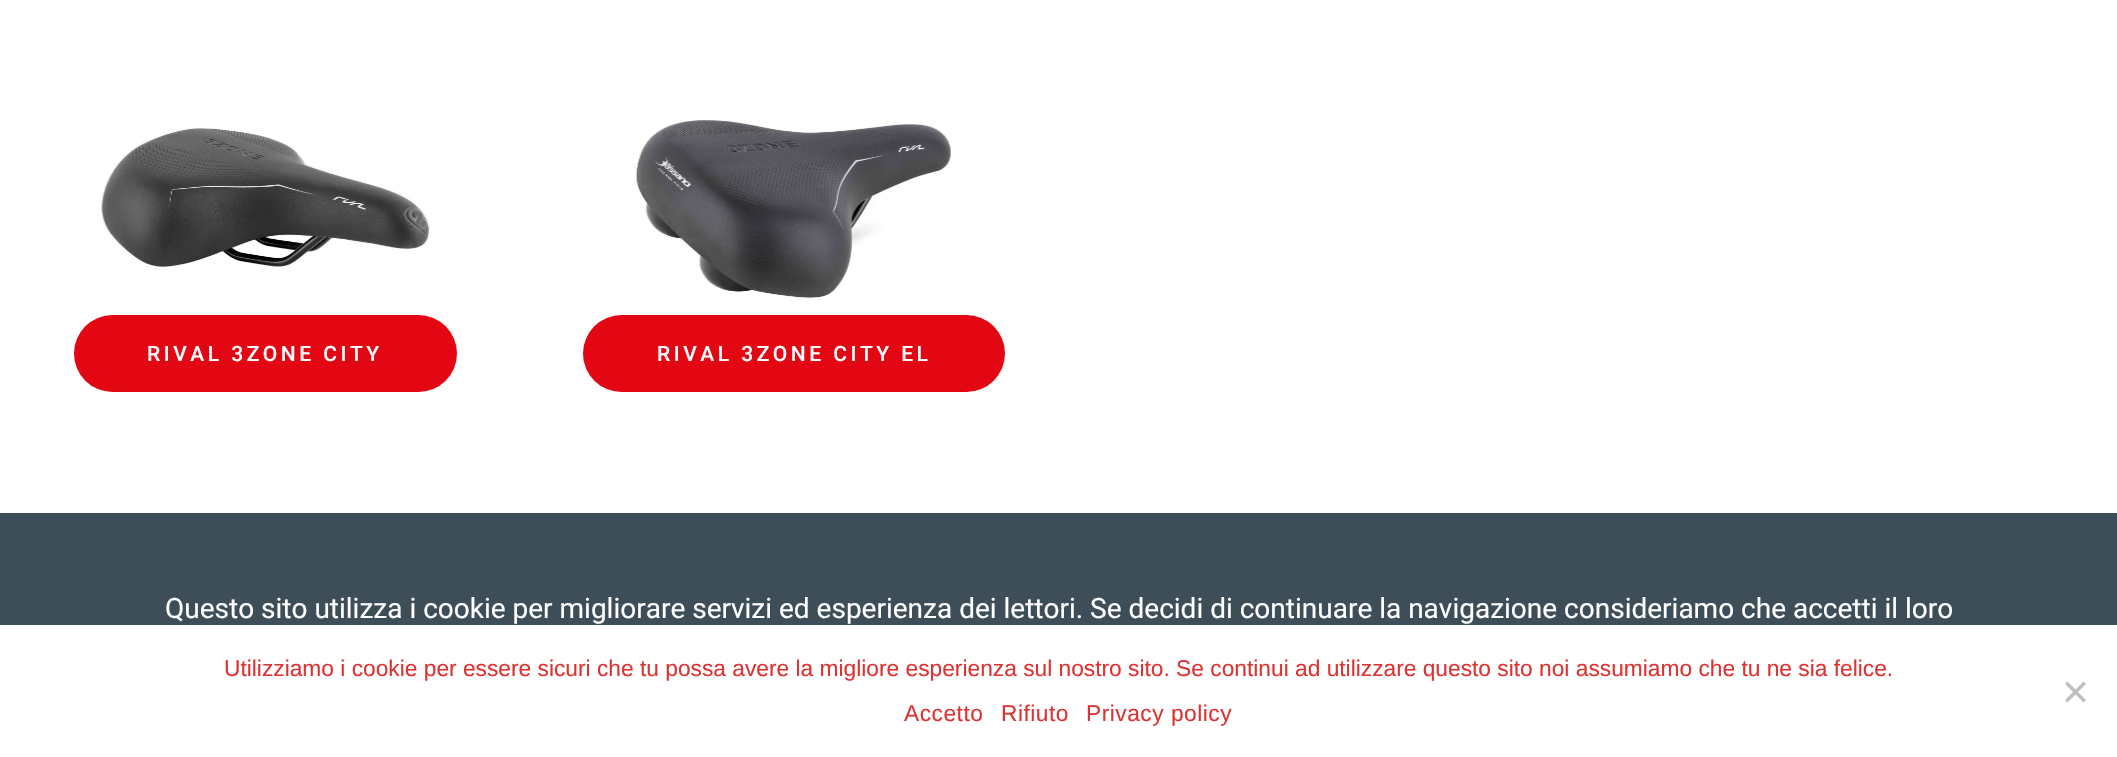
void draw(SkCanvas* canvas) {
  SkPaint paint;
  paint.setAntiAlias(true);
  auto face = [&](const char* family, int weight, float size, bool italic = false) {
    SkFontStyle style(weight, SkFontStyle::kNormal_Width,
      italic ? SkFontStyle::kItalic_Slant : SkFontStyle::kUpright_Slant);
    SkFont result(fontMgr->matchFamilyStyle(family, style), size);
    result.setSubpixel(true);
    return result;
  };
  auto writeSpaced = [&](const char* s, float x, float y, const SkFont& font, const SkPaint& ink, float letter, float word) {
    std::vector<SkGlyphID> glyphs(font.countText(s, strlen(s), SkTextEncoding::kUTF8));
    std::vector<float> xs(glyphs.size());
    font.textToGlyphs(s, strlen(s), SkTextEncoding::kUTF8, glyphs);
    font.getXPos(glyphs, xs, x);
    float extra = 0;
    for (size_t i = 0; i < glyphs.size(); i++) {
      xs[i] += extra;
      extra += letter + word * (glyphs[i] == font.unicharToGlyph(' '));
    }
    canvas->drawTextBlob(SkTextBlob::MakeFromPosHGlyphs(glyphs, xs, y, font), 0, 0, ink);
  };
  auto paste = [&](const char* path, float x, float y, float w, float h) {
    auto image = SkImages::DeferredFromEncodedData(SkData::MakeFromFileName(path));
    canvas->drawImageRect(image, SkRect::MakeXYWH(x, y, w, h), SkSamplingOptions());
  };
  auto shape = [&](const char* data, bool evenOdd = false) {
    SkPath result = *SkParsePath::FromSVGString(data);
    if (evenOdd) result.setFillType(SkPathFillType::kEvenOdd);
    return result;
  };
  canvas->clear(0xffffffff);
  paste("img/1.png", 101, 128, 329, 139);
  paint.setColor(0xffe30613);
  canvas->drawRoundRect(SkRect::MakeXYWH(74, 315, 383, 77), 38.5f, 38.5f, paint);
  paste("img/2.png", 635, 120, 316, 178);
  canvas->drawRoundRect(SkRect::MakeXYWH(583, 315, 422, 77), 38.5f, 38.5f, paint);
  paint.setColor(0xff3d4e58);
  canvas->drawRect(SkRect::MakeXYWH(0, 513, 2117, 112), paint);
  paint.setColor(0xffc0c0c0);
  canvas->drawPath(shape("M2083.5 681.5L2086 684L2067.5 702.5L2065 700Z"), paint);
  canvas->drawPath(shape("M2065 684L2067.5 681.5L2086 700L2083.5 702.5Z"), paint);
  auto f0 = face("Roboto", 500, 21);
  paint.setColor(0xffffffff);
  writeSpaced("RIVAL 3ZONE CITY", 147, 361, f0, paint, 3.5f, 0);
  writeSpaced("RIVAL 3ZONE CITY EL", 657, 361, f0, paint, 3.5f, 0);
  auto f1 = face("Roboto", 400, 28);
  canvas->drawString("Questo sito utilizza i cookie per migliorare servizi ed esperienza dei lettori. Se decidi di continuare la navigazione consideriamo che accetti il loro", 165, 618, f1, paint);
  auto f2 = face("Liberation Sans", 400, 22.75f);
  paint.setColor(0xffdd3333);
  canvas->drawString("Utilizziamo i cookie per essere sicuri che tu possa avere la migliore esperienza sul nostro sito. Se continui ad utilizzare questo sito noi assumiamo che tu ne sia felice.", 224, 676, f2, paint);
  {
    const struct { const char* s; float x, y; } items[] = {
      {"Accetto", 904, 721},
      {"Rifiuto", 1001, 721},
      {"Privacy policy", 1086, 721},
    };
    for (auto [s, x, y] : items) {
      writeSpaced(s, x, y, f2, paint, 0.5f, 0);
    }
  }
}
